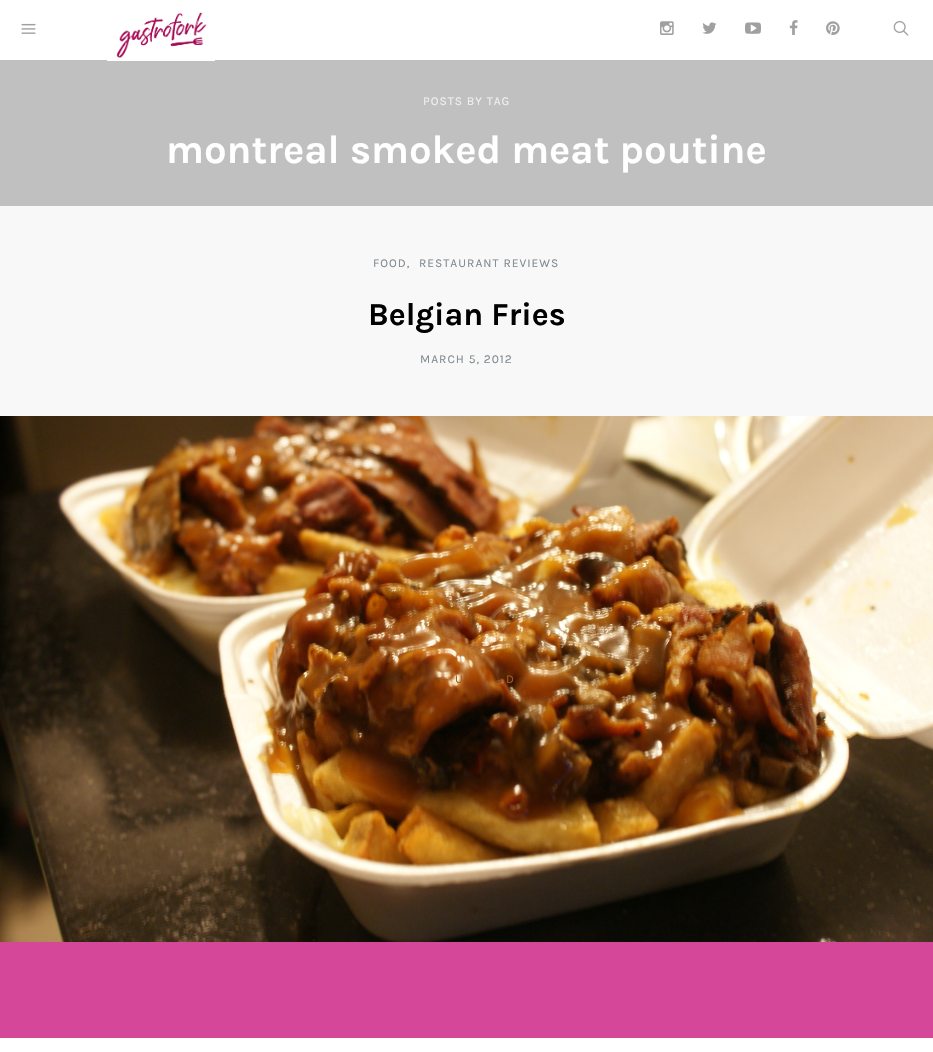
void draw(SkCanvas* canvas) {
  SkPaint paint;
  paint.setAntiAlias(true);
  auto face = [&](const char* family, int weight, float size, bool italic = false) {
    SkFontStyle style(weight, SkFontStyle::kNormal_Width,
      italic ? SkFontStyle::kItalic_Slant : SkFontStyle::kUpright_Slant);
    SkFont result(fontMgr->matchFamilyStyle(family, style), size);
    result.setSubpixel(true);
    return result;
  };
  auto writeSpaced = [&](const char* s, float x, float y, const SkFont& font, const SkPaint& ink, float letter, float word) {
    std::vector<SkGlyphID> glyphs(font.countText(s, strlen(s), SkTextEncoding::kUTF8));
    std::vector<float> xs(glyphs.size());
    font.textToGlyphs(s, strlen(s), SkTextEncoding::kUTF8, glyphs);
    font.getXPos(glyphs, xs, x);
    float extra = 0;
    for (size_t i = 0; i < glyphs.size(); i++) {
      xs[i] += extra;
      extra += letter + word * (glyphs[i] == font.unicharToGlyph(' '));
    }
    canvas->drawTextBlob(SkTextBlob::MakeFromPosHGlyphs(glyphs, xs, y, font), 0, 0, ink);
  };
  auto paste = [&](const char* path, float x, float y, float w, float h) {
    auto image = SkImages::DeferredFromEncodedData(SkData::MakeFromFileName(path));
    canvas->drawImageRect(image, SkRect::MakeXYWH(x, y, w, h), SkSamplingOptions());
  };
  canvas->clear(0xffffffff);
  paste("img/1.png", 21, 23, 15, 11);
  paint.setColor(0xffc0c0c0);
  canvas->drawRect(SkRect::MakeXYWH(0, 60, 933, 146), paint);
  paste("img/2.png", 107, 12, 108, 49);
  paste("img/3.png", 660, 21, 14, 14);
  paste("img/4.png", 702, 22, 15, 12);
  paste("img/5.png", 745, 22, 16, 12);
  paste("img/6.png", 789, 20, 9, 15);
  paste("img/7.png", 826, 21, 14, 14);
  paste("img/8.png", 893, 21, 16, 15);
  paint.setColor(0xfff8f8f8);
  canvas->drawRect(SkRect::MakeXYWH(0, 206, 933, 210), paint);
  paste("img/9.png", 0, 416, 933, 526);
  paint.setColor(0xffd54799);
  canvas->drawRect(SkRect::MakeXYWH(0, 942, 933, 96), paint);
  auto f0 = face("Karla", 400, 12);
  paint.setColor(0xffefefef);
  writeSpaced("POSTS BY TAG", 423, 105, f0, paint, 1, 0);
  auto f1 = face("Karla", 700, 40);
  paint.setColor(0xffffffff);
  canvas->drawString("montreal smoked meat poutine", 166, 163, f1, paint);
  paint.setColor(0xff818a91);
  writeSpaced("FOOD,", 373, 267, f0, paint, 1, 0);
  writeSpaced("RESTAURANT REVIEWS", 419, 267, f0, paint, 1, 0);
  auto f2 = face("Karla", 700, 32);
  paint.setColor(0xff000000);
  canvas->drawString("Belgian Fries", 368, 325, f2, paint);
  paint.setColor(0xff818a91);
  writeSpaced("MARCH 5, 2012", 420, 363, f0, paint, 1, 0);
  paint.setColor(0xffa05d29);
  writeSpaced("U", 455, 683, f0, paint, 1, 0);
  writeSpaced("D", 506, 683, f0, paint, 1, 0);
}
